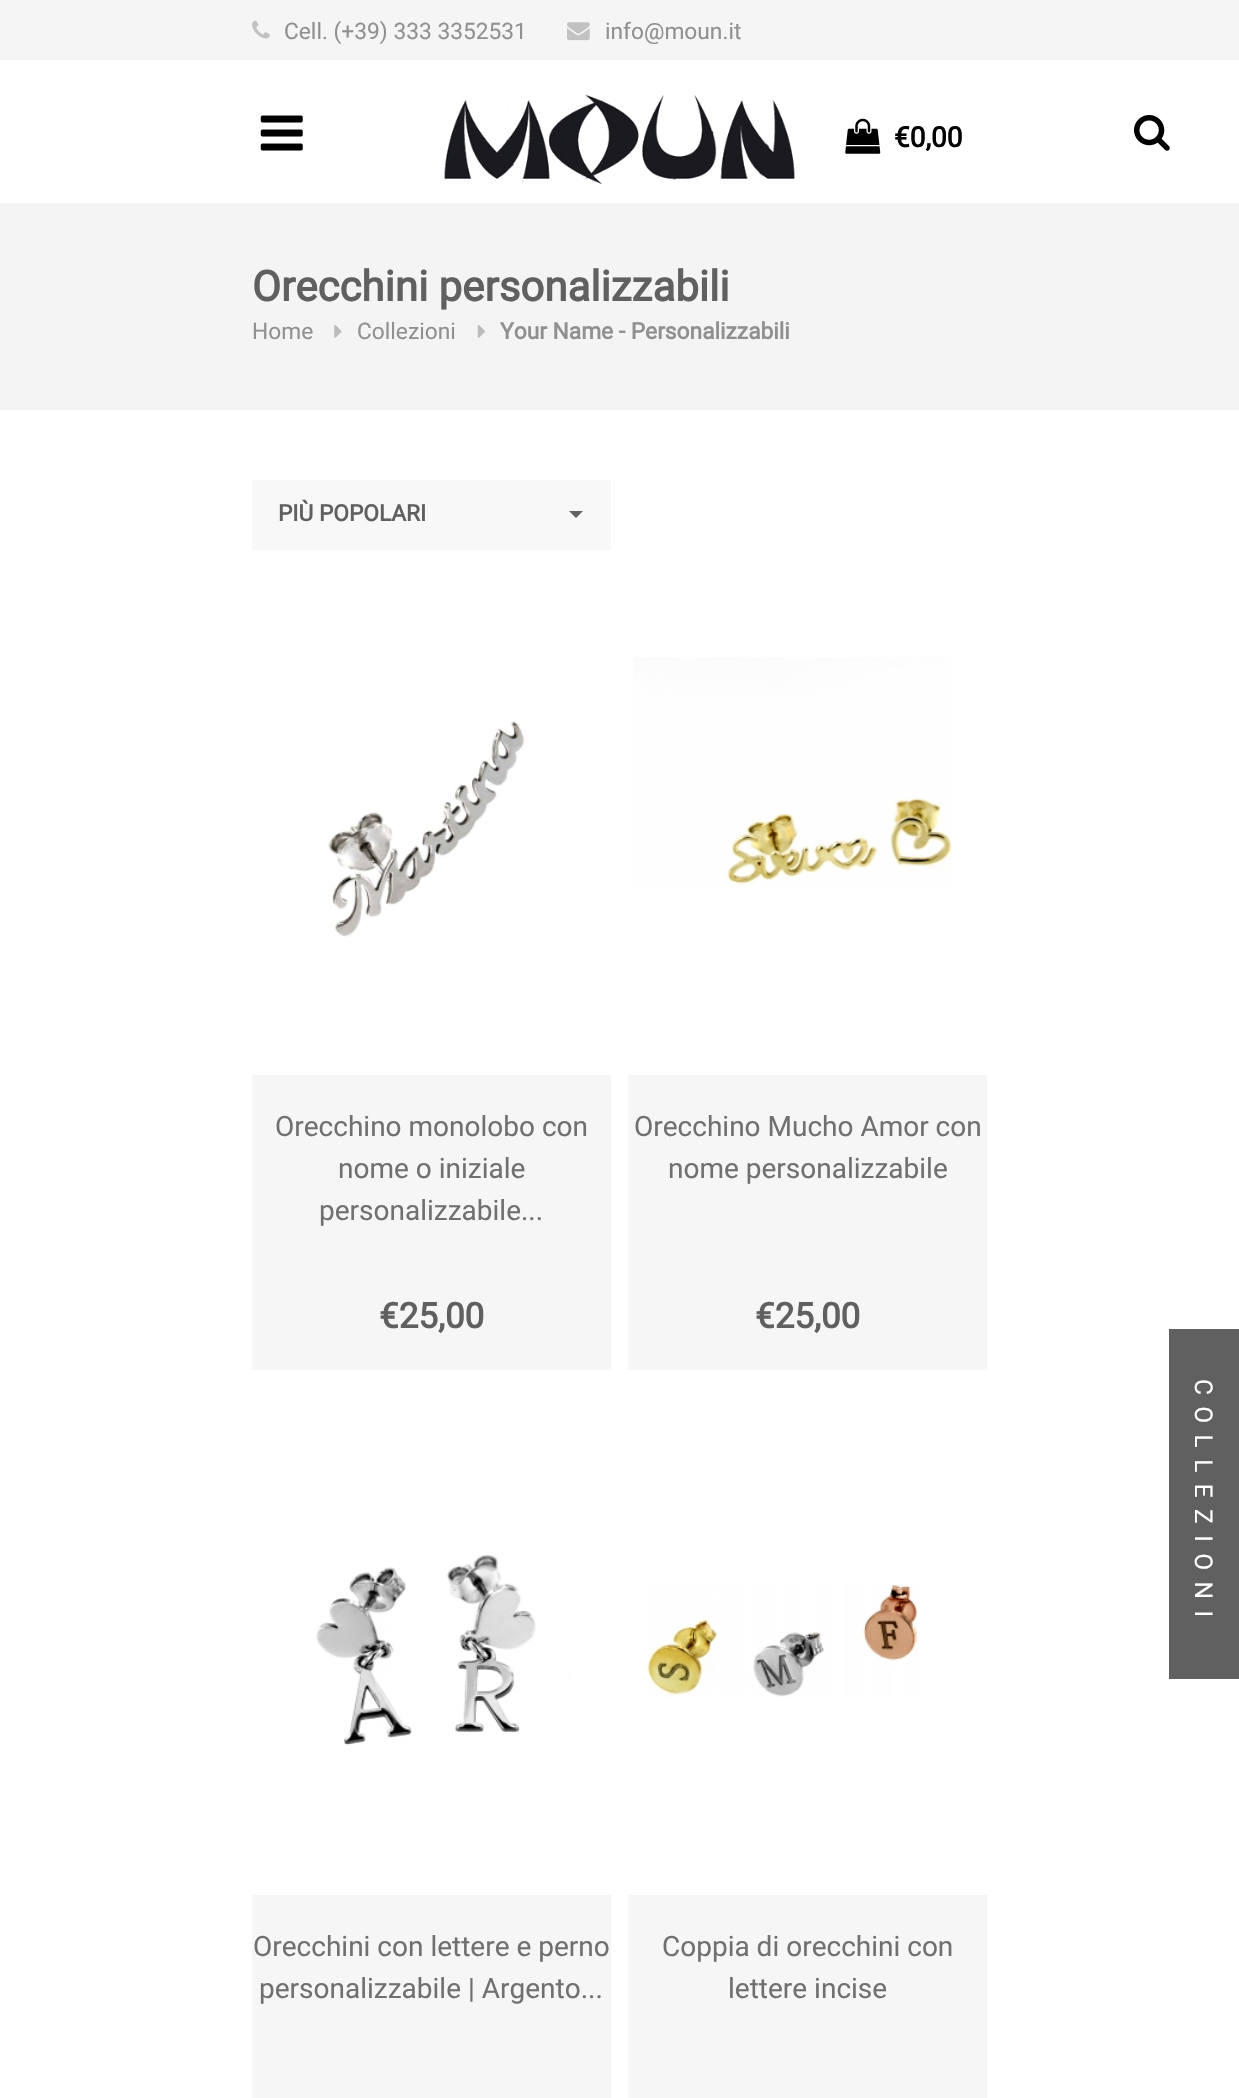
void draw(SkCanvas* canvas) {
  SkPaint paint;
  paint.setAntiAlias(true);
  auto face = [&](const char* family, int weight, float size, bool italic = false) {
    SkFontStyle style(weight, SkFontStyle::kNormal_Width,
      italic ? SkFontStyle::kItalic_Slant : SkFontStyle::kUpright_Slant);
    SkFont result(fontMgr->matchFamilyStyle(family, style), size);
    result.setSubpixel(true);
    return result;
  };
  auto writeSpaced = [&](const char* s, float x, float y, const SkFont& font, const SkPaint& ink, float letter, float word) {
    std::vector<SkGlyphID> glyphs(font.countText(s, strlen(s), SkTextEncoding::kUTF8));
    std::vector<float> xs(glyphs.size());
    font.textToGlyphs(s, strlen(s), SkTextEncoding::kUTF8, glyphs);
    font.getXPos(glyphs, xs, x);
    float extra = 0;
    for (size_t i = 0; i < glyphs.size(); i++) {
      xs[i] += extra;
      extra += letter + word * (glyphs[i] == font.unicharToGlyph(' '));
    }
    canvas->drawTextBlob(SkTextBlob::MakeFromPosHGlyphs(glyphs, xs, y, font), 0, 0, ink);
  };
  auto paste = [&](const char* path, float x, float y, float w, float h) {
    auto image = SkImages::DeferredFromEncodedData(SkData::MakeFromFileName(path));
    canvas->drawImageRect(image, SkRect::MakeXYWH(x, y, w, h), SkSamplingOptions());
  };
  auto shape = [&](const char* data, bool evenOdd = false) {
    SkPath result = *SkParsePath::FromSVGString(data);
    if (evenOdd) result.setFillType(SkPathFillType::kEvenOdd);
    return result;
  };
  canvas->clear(0xffffffff);
  paint.setColor(0xfff5f5f5);
  canvas->drawRect(SkRect::MakeXYWH(0, 0, 1239, 60), paint);
  paste("img/1.png", 252, 20, 18, 19);
  paste("img/2.png", 567, 22, 23, 19);
  paste("img/3.png", 260, 115, 43, 36);
  paste("img/4.png", 444, 94, 351, 90);
  paste("img/5.png", 845, 118, 36, 36);
  paste("img/6.png", 1134, 115, 36, 36);
  paint.setColor(0xfff4f4f4);
  canvas->drawRect(SkRect::MakeXYWH(0, 203, 1239, 207), paint);
  paste("img/7.png", 334, 325, 8, 13);
  paste("img/8.png", 477, 325, 8, 13);
  paint.setColor(0xfff8f8f8);
  canvas->drawRect(SkRect::MakeXYWH(252, 480, 359, 70), paint);
  paint.setColor(0xff606060);
  canvas->drawPath(shape("M569 511H583L576 518Z"), paint);
  paste("img/9.png", 328, 721, 197, 216);
  paint.setColor(0xfff6f6f6);
  canvas->drawRect(SkRect::MakeXYWH(252, 1075, 359, 295), paint);
  paste("img/10.png", 633, 657, 320, 228);
  canvas->drawRect(SkRect::MakeXYWH(628, 1075, 359, 295), paint);
  paste("img/11.png", 316, 1555, 256, 191);
  canvas->drawRect(SkRect::MakeXYWH(252, 1895, 359, 203), paint);
  paste("img/12.png", 646, 1584, 273, 113);
  canvas->drawRect(SkRect::MakeXYWH(628, 1895, 359, 203), paint);
  paint.setColor(0xff606060);
  canvas->drawRect(SkRect::MakeXYWH(1169, 1329, 70, 350), paint);
  auto f0 = face("Roboto", 400, 22.75f);
  paint.setColor(0xff909090);
  canvas->drawString("Cell. (+39) 333 3352531", 284, 39, f0, paint);
  canvas->drawString("info@moun.it", 605, 39, f0, paint);
  auto f1 = face("Roboto", 700, 28);
  paint.setColor(0xff000000);
  canvas->drawString("€0,00", 894, 147, f1, paint);
  auto f2 = face("Roboto", 700, 42);
  paint.setColor(0xff606060);
  canvas->drawString("Orecchini personalizzabili", 252, 301, f2, paint);
  paint.setColor(0xff909090);
  canvas->drawString("Home", 252, 339, f0, paint);
  canvas->drawString("Collezioni", 357, 339, f0, paint);
  auto f3 = face("Roboto", 700, 22.75f);
  canvas->drawString("Your Name - Personalizzabili", 500, 339, f3, paint);
  paint.setColor(0xff606060);
  canvas->drawString("PIÙ POPOLARI", 278, 521, f3, paint);
  auto f4 = face("Roboto", 400, 28);
  paint.setColor(0xff707070);
  {
    const struct { const char* s; float x, y; } items[] = {
      {"Orecchino monolobo con", 275, 1136},
      {"nome o iniziale", 338, 1178},
      {"personalizzabile...", 319, 1220},
    };
    for (auto [s, x, y] : items) {
      canvas->drawString(s, x, y, f4, paint);
    }
  }
  auto f5 = face("Roboto", 700, 35);
  paint.setColor(0xff606060);
  canvas->drawString("€25,00", 379, 1328, f5, paint);
  paint.setColor(0xff707070);
  canvas->drawString("Orecchino Mucho Amor con", 634, 1136, f4, paint);
  canvas->drawString("nome personalizzabile", 668, 1178, f4, paint);
  paint.setColor(0xff606060);
  canvas->drawString("€25,00", 755, 1328, f5, paint);
  paint.setColor(0xff707070);
  {
    const struct { const char* s; float x, y; } items[] = {
      {"Orecchini con lettere e perno", 253, 1956},
      {"personalizzabile | Argento...", 259, 1998},
      {"Coppia di orecchini con", 662, 1956},
      {"lettere incise", 728, 1998},
    };
    for (auto [s, x, y] : items) {
      canvas->drawString(s, x, y, f4, paint);
    }
  }
  auto f6 = face("Roboto", 400, 24.5f);
  paint.setColor(0xffffffff);
  canvas->save();
  canvas->rotate(90, 1195, 1379);
  writeSpaced("COLLEZIONI", 1195, 1379, f6, paint, 11.4f, 0);
  canvas->restore();
}
